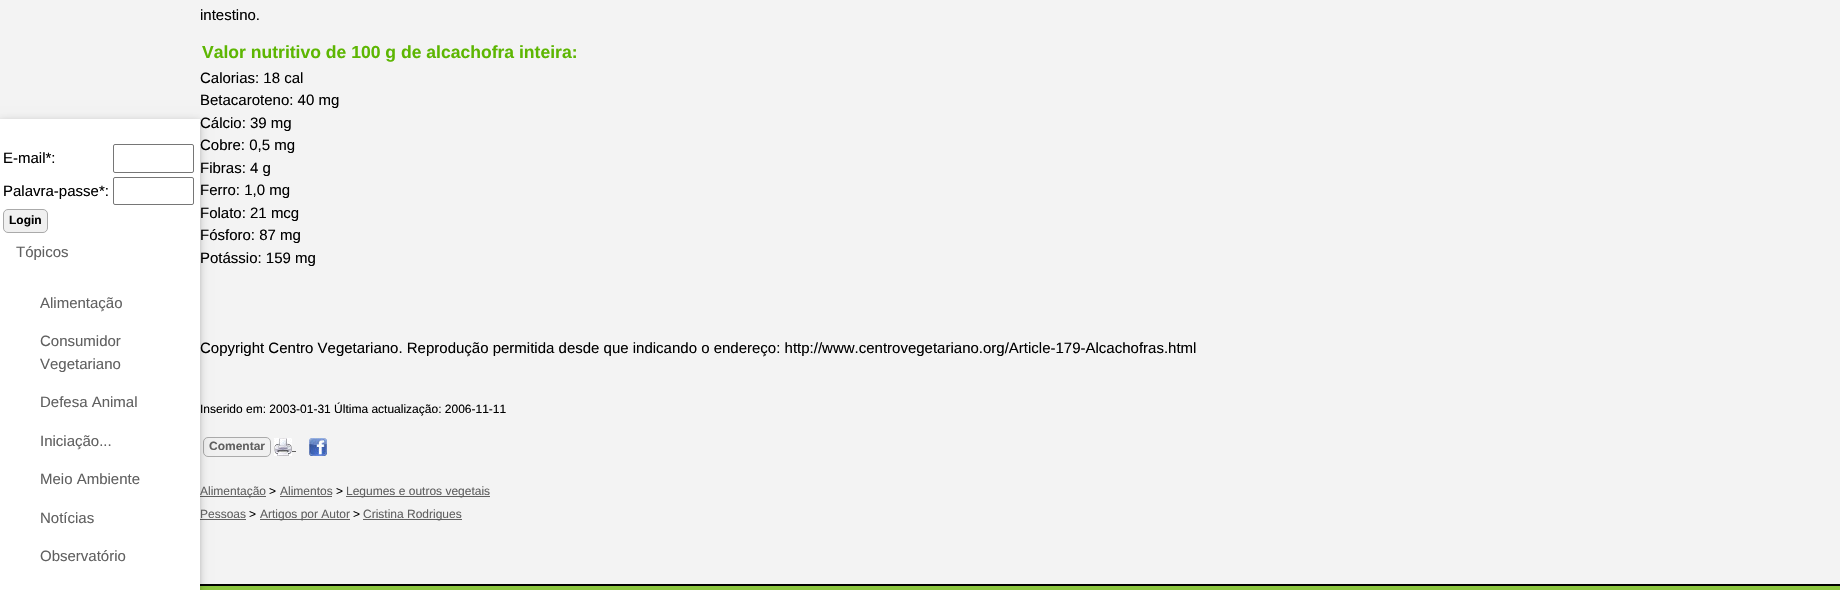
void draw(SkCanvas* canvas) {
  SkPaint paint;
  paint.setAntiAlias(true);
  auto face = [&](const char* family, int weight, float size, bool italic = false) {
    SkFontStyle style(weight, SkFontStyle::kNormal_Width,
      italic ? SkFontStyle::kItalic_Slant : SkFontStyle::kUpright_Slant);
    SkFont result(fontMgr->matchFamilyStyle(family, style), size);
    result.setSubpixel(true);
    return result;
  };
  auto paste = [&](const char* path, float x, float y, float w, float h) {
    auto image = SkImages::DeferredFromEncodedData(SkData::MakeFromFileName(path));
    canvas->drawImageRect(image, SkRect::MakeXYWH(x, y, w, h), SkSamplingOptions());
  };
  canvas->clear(0xfff3f3f3);
  paint.setColor(0xfff0f0f0);
  canvas->drawRoundRect(SkRect::MakeXYWH(203.5f, 437.5f, 67, 19), 4.5f, 4.5f, paint);
  paint.setStroke(true);
  paint.setStrokeWidth(1);
  paint.setColor(0xffaaaaaa);
  canvas->drawRoundRect(SkRect::MakeXYWH(203.5f, 437.5f, 67, 19), 4.5f, 4.5f, paint);
  paint.setStroke(false);
  {
    const struct { float x, y, w, h; SkColor color; } items[] = {
      {200, 496, 66, 1, 0xff606060},
      {200, 519, 46, 1, 0xff606060},
      {200, 586, 1640, 4, 0xff8cc63f},
      {200, 584, 1640, 2, 0xff000000},
    };
    for (auto [x, y, w, h, color] : items) {
      paint.setColor(color);
      canvas->drawRect(SkRect::MakeXYWH(x, y, w, h), paint);
    }
  }
  paint.setColor(0x1f000000);
  paint.setMaskFilter(SkMaskFilter::MakeBlur(kNormal_SkBlurStyle, 5));
  canvas->drawRect(SkRect::MakeXYWH(0, 121, 200, 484), paint);
  paint.setMaskFilter(nullptr);
  paint.setColor(0x29000000);
  paint.setMaskFilter(SkMaskFilter::MakeBlur(kNormal_SkBlurStyle, 2.5f));
  canvas->drawRect(SkRect::MakeXYWH(0, 121, 200, 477), paint);
  paint.setMaskFilter(nullptr);
  paint.setColor(0xffffffff);
  canvas->drawRect(SkRect::MakeXYWH(0, 119, 200, 471), paint);
  paint.setStroke(true);
  paint.setColor(0xff767676);
  canvas->drawRoundRect(SkRect::MakeXYWH(113.5f, 144.5f, 80, 28), 1.5f, 1.5f, paint);
  canvas->drawRoundRect(SkRect::MakeXYWH(113.5f, 177.5f, 80, 27), 1.5f, 1.5f, paint);
  paint.setStroke(false);
  paint.setColor(0xfff0f0f0);
  canvas->drawRoundRect(SkRect::MakeXYWH(3.5f, 209.5f, 44, 23), 4.5f, 4.5f, paint);
  paint.setStroke(true);
  paint.setColor(0xffaaaaaa);
  canvas->drawRoundRect(SkRect::MakeXYWH(3.5f, 209.5f, 44, 23), 4.5f, 4.5f, paint);
  paint.setStroke(false);
  paint.setColor(0xff606060);
  canvas->drawRect(SkRect::MakeXYWH(292, 451, 4, 1), paint);
  paste("img/1.png", 274, 438, 18, 18);
  paste("img/2.png", 309, 438, 18, 18);
  {
    const struct { float x, y, w, h; SkColor color; } items[] = {
      {280, 496, 52, 1, 0xff606060},
      {346, 496, 144, 1, 0xff606060},
      {260, 519, 90, 1, 0xff606060},
      {363, 519, 99, 1, 0xff606060},
    };
    for (auto [x, y, w, h, color] : items) {
      paint.setColor(color);
      canvas->drawRect(SkRect::MakeXYWH(x, y, w, h), paint);
    }
  }
  auto f0 = face("Liberation Sans", 400, 15);
  paint.setColor(0xff000000);
  canvas->drawString("E-mail*:", 3, 163, f0, paint);
  canvas->drawString("Palavra-passe*:", 3, 196, f0, paint);
  auto f1 = face("Liberation Sans", 700, 12);
  canvas->drawString("Login", 9, 224, f1, paint);
  paint.setColor(0xff606060);
  {
    const struct { const char* s; float x, y; } items[] = {
      {"Tópicos", 16, 257},
      {"Alimentação", 40, 308},
      {"Consumidor", 40, 346},
      {"Vegetariano", 40, 369},
      {"Defesa Animal", 40, 407},
      {"Iniciação...", 40, 446},
      {"Meio Ambiente", 40, 484},
      {"Notícias", 40, 523},
      {"Observatório", 40, 561},
    };
    for (auto [s, x, y] : items) {
      canvas->drawString(s, x, y, f0, paint);
    }
  }
  paint.setColor(0xff000000);
  canvas->drawString("intestino.", 200, 20, f0, paint);
  auto f2 = face("Liberation Sans", 700, 17.55f);
  paint.setColor(0xff5db602);
  canvas->drawString("Valor nutritivo de 100 g de alcachofra inteira:", 202, 58, f2, paint);
  paint.setColor(0xff000000);
  {
    const struct { const char* s; float x, y; } items[] = {
      {"Calorias: 18 cal", 200, 83},
      {"Betacaroteno: 40 mg", 200, 105},
      {"Cálcio: 39 mg", 200, 128},
      {"Cobre: 0,5 mg", 200, 150},
      {"Fibras: 4 g", 200, 173},
      {"Ferro: 1,0 mg", 200, 195},
      {"Folato: 21 mcg", 200, 218},
      {"Fósforo: 87 mg", 200, 240},
      {"Potássio: 159 mg", 200, 263},
      {"Copyright Centro Vegetariano. Reprodução permitida desde que indicando o endereço: http://www.centrovegetariano.org/Article-179-Alcachofras.html", 200, 353},
    };
    for (auto [s, x, y] : items) {
      canvas->drawString(s, x, y, f0, paint);
    }
  }
  auto f3 = face("Liberation Sans", 400, 12);
  canvas->drawString("Inserido em: 2003-01-31 Última actualização: 2006-11-11", 200, 413, f3, paint);
  paint.setColor(0xff606060);
  canvas->drawString("Comentar", 209, 450, f1, paint);
  canvas->drawString("Alimentação", 200, 495, f3, paint);
  paint.setColor(0xff000000);
  canvas->drawString(">", 269, 495, f3, paint);
  paint.setColor(0xff606060);
  canvas->drawString("Alimentos", 280, 495, f3, paint);
  paint.setColor(0xff000000);
  canvas->drawString(">", 336, 495, f3, paint);
  paint.setColor(0xff606060);
  canvas->drawString("Legumes e outros vegetais", 346, 495, f3, paint);
  canvas->drawString("Pessoas", 200, 518, f3, paint);
  paint.setColor(0xff000000);
  canvas->drawString(">", 249, 518, f3, paint);
  paint.setColor(0xff606060);
  canvas->drawString("Artigos por Autor", 260, 518, f3, paint);
  paint.setColor(0xff000000);
  canvas->drawString(">", 353, 518, f3, paint);
  paint.setColor(0xff606060);
  canvas->drawString("Cristina Rodrigues", 363, 518, f3, paint);
}
